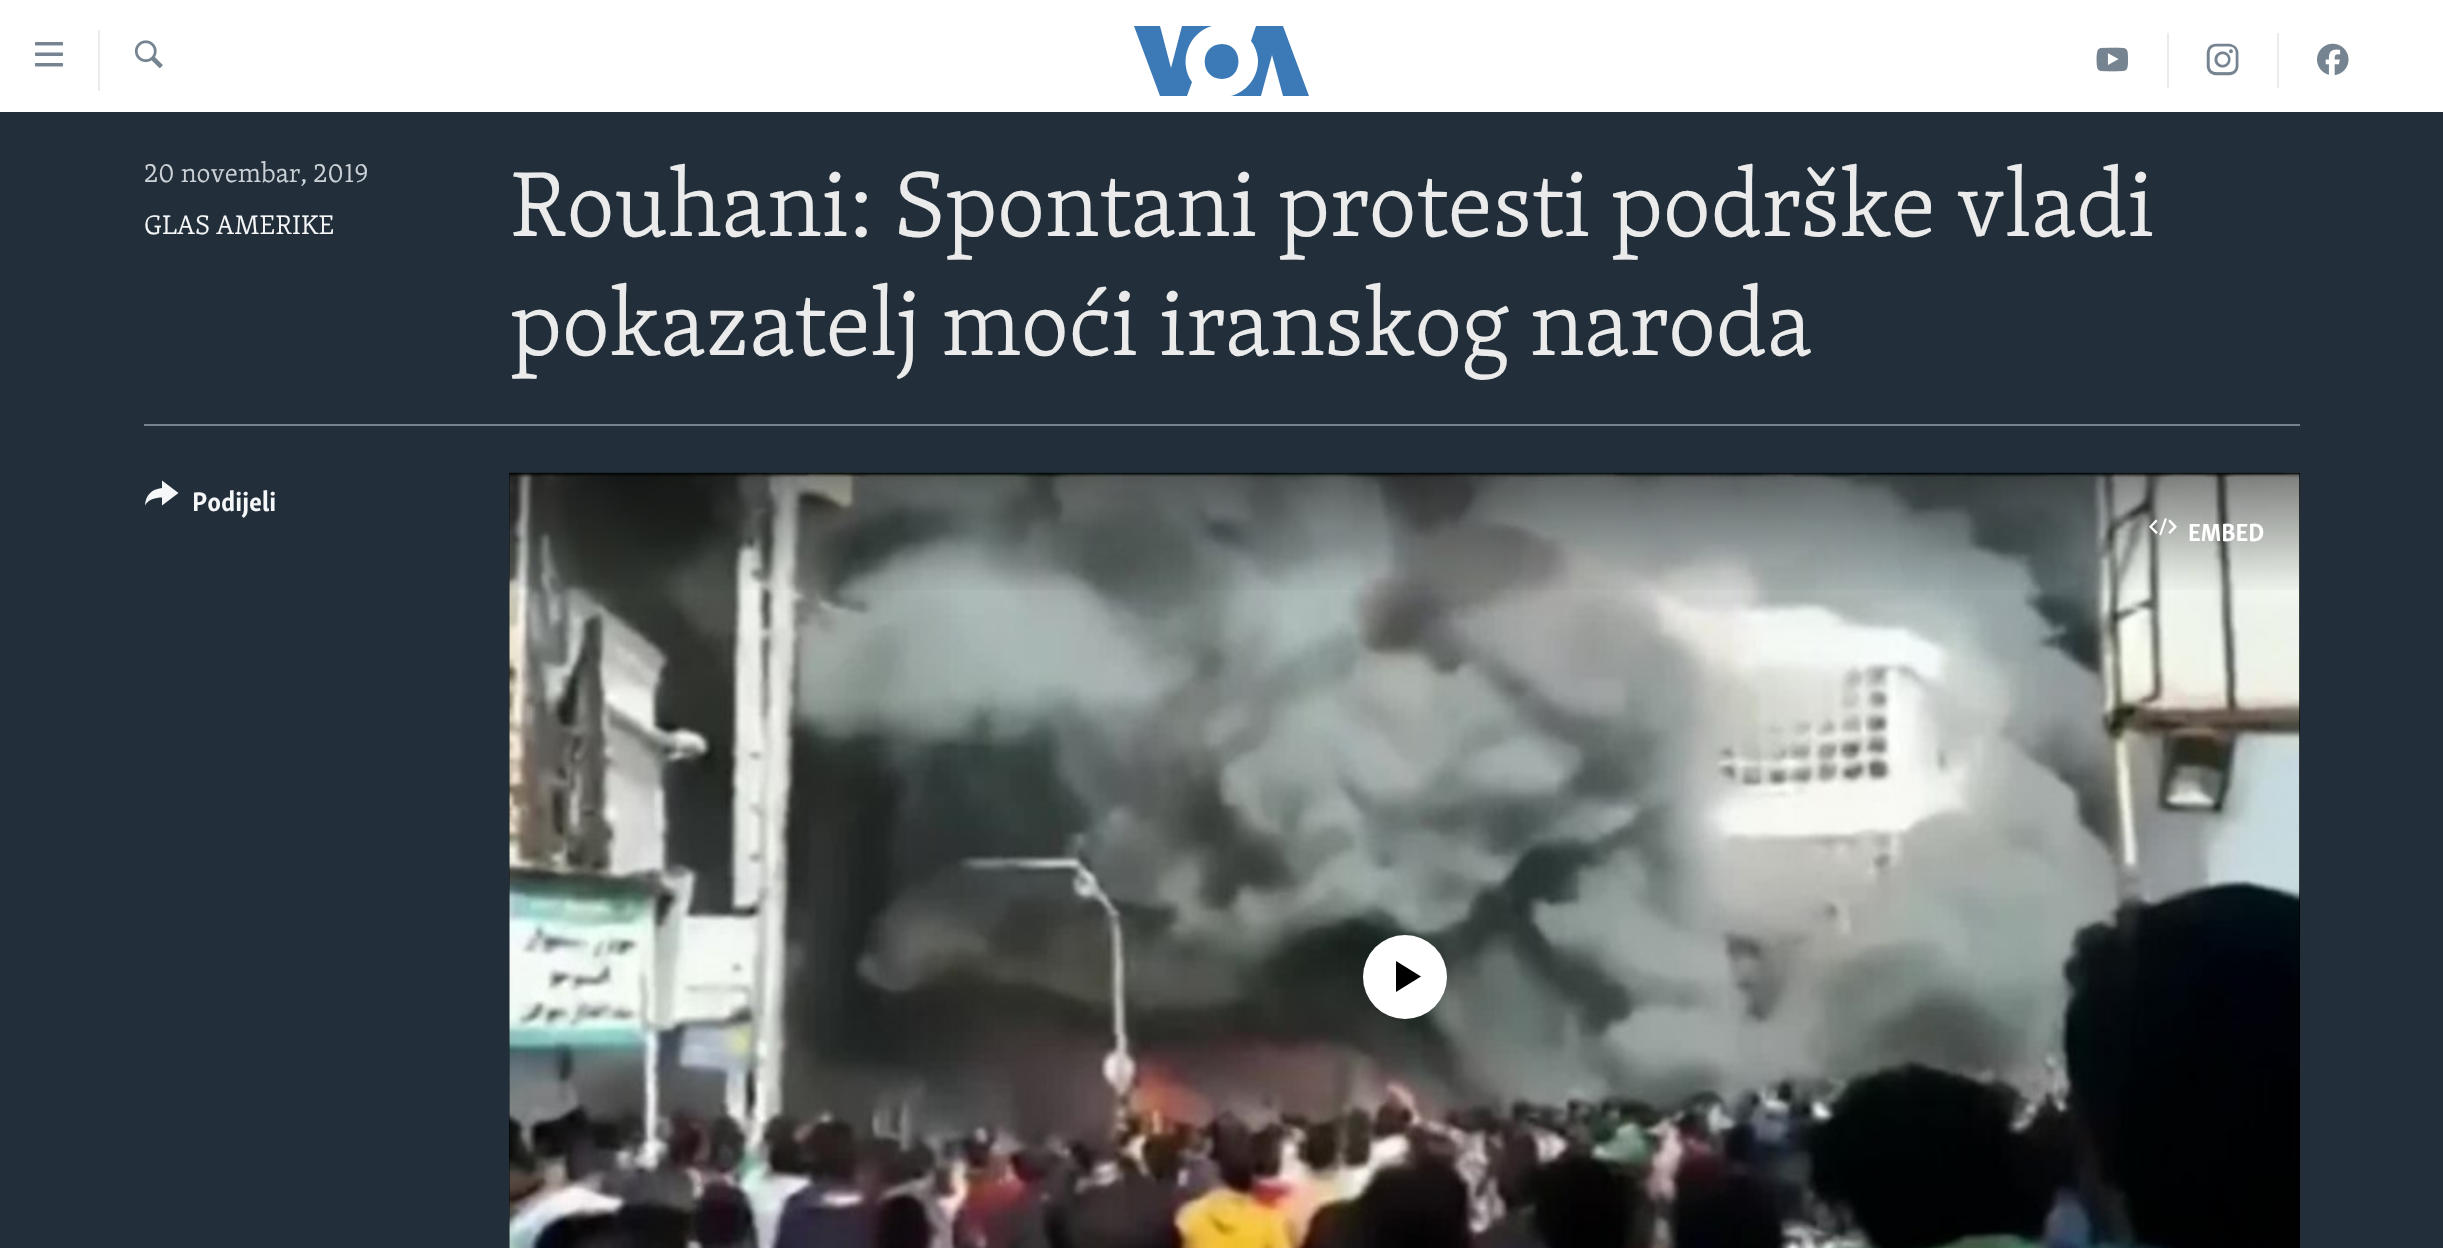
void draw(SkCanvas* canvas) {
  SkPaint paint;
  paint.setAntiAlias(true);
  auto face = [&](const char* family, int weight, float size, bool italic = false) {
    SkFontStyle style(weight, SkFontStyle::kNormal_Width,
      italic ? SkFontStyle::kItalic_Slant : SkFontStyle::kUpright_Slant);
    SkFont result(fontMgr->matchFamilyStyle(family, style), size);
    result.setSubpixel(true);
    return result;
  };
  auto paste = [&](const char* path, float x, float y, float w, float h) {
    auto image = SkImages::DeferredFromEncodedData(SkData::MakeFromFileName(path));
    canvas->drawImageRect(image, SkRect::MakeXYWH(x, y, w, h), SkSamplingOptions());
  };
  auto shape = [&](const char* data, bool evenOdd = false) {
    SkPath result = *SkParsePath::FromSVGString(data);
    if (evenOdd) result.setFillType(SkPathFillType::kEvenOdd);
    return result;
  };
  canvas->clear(0xffffffff);
  paste("img/1.png", 35, 42, 28, 25);
  paint.setColor(0xffebebeb);
  canvas->drawRect(SkRect::MakeXYWH(98, 30, 2, 61), paint);
  paste("img/2.png", 134, 40, 29, 29);
  paint.setColor(0xff3b79b7);
  canvas->drawPath(shape("M1192 82L1187 96H1160L1134 26H1160L1171 68L1182 26H1212C1188 33 1178 62 1192 82ZM1222 44C1199 44 1199 79 1222 79C1244 79 1244 44 1222 44ZM1258 61C1258 78 1246 92 1231 96H1261L1272 55L1283 96H1309L1283 26H1256L1251 41C1255 46 1258 54 1258 61Z"), paint);
  paint.setColor(0xffebebeb);
  canvas->drawRect(SkRect::MakeXYWH(2167, 33, 2, 55), paint);
  paste("img/3.png", 2096, 47, 32, 25);
  canvas->drawRect(SkRect::MakeXYWH(2277, 33, 2, 55), paint);
  paste("img/4.png", 2206, 43, 33, 33);
  paste("img/5.png", 2317, 43, 32, 33);
  paint.setColor(0xff222f3a);
  canvas->drawRect(SkRect::MakeXYWH(0, 112, 2443, 1136), paint);
  paint.setColor(0xff768492);
  canvas->drawRect(SkRect::MakeXYWH(144, 424, 2156, 2), paint);
  paint.setColor(0xfff6f7f8);
  canvas->drawPath(shape("M145 505.5C145.5 495.5 151.5 489 162 488V480.5L178.5 493L162 505.5V497.5C155.5 497.5 148 499.5 145 505.5Z"), paint);
  paint.setColor(0xff000000);
  canvas->drawRect(SkRect::MakeXYWH(509, 473, 1791, 775), paint);
  paste("img/6.png", 509, 472, 1791, 776);
  {
    const SkColor colors[] = {0x80000000, 0x00000000};
    const float stops[] = {0, 1};
    const SkPoint ends[] = {{1404, 472}, {1404, 595}};
    paint.setShader(SkGradientShader::MakeLinear(ends, colors, stops, 2, SkTileMode::kClamp));
    paint.setAlpha(255);
  }
  canvas->drawRect(SkRect::MakeXYWH(509, 473, 1791, 117), paint);
  paste("img/7.png", 2149, 518, 28, 18);
  paint.setShader(nullptr);
  paint.setColor(0xffffffff);
  canvas->drawCircle(1405, 977, 42, paint);
  paint.setColor(0xff000000);
  canvas->drawPath(shape("M1396 992L1421 976.5L1396 961Z"), paint);
  auto f0 = face("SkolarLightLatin", 300, 27.5f);
  paint.setColor(0xffcbd1d6);
  canvas->drawString("20 novembar, 2019", 144, 182, f0, paint);
  paint.setColor(0xfff6f7f8);
  canvas->drawString("GLAS AMERIKE", 144, 234, f0, paint);
  auto f1 = face("SkolarLightLatin", 300, 94.5f);
  paint.setColor(0xffebebeb);
  canvas->drawString("Rouhani: Spontani protesti podrške vladi", 510, 236, f1, paint);
  canvas->drawString("pokazatelj moći iranskog naroda", 510, 355, f1, paint);
  auto f2 = face("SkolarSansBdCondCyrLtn", 700, 27.5f);
  paint.setColor(0xfff6f7f8);
  canvas->drawString("Podijeli", 192, 511, f2, paint);
  auto f3 = face("SkolarSansBdCondCyrLtn", 700, 25.5f);
  paint.setColor(0xffffffff);
  canvas->drawString("EMBED", 2188, 541, f3, paint);
}
